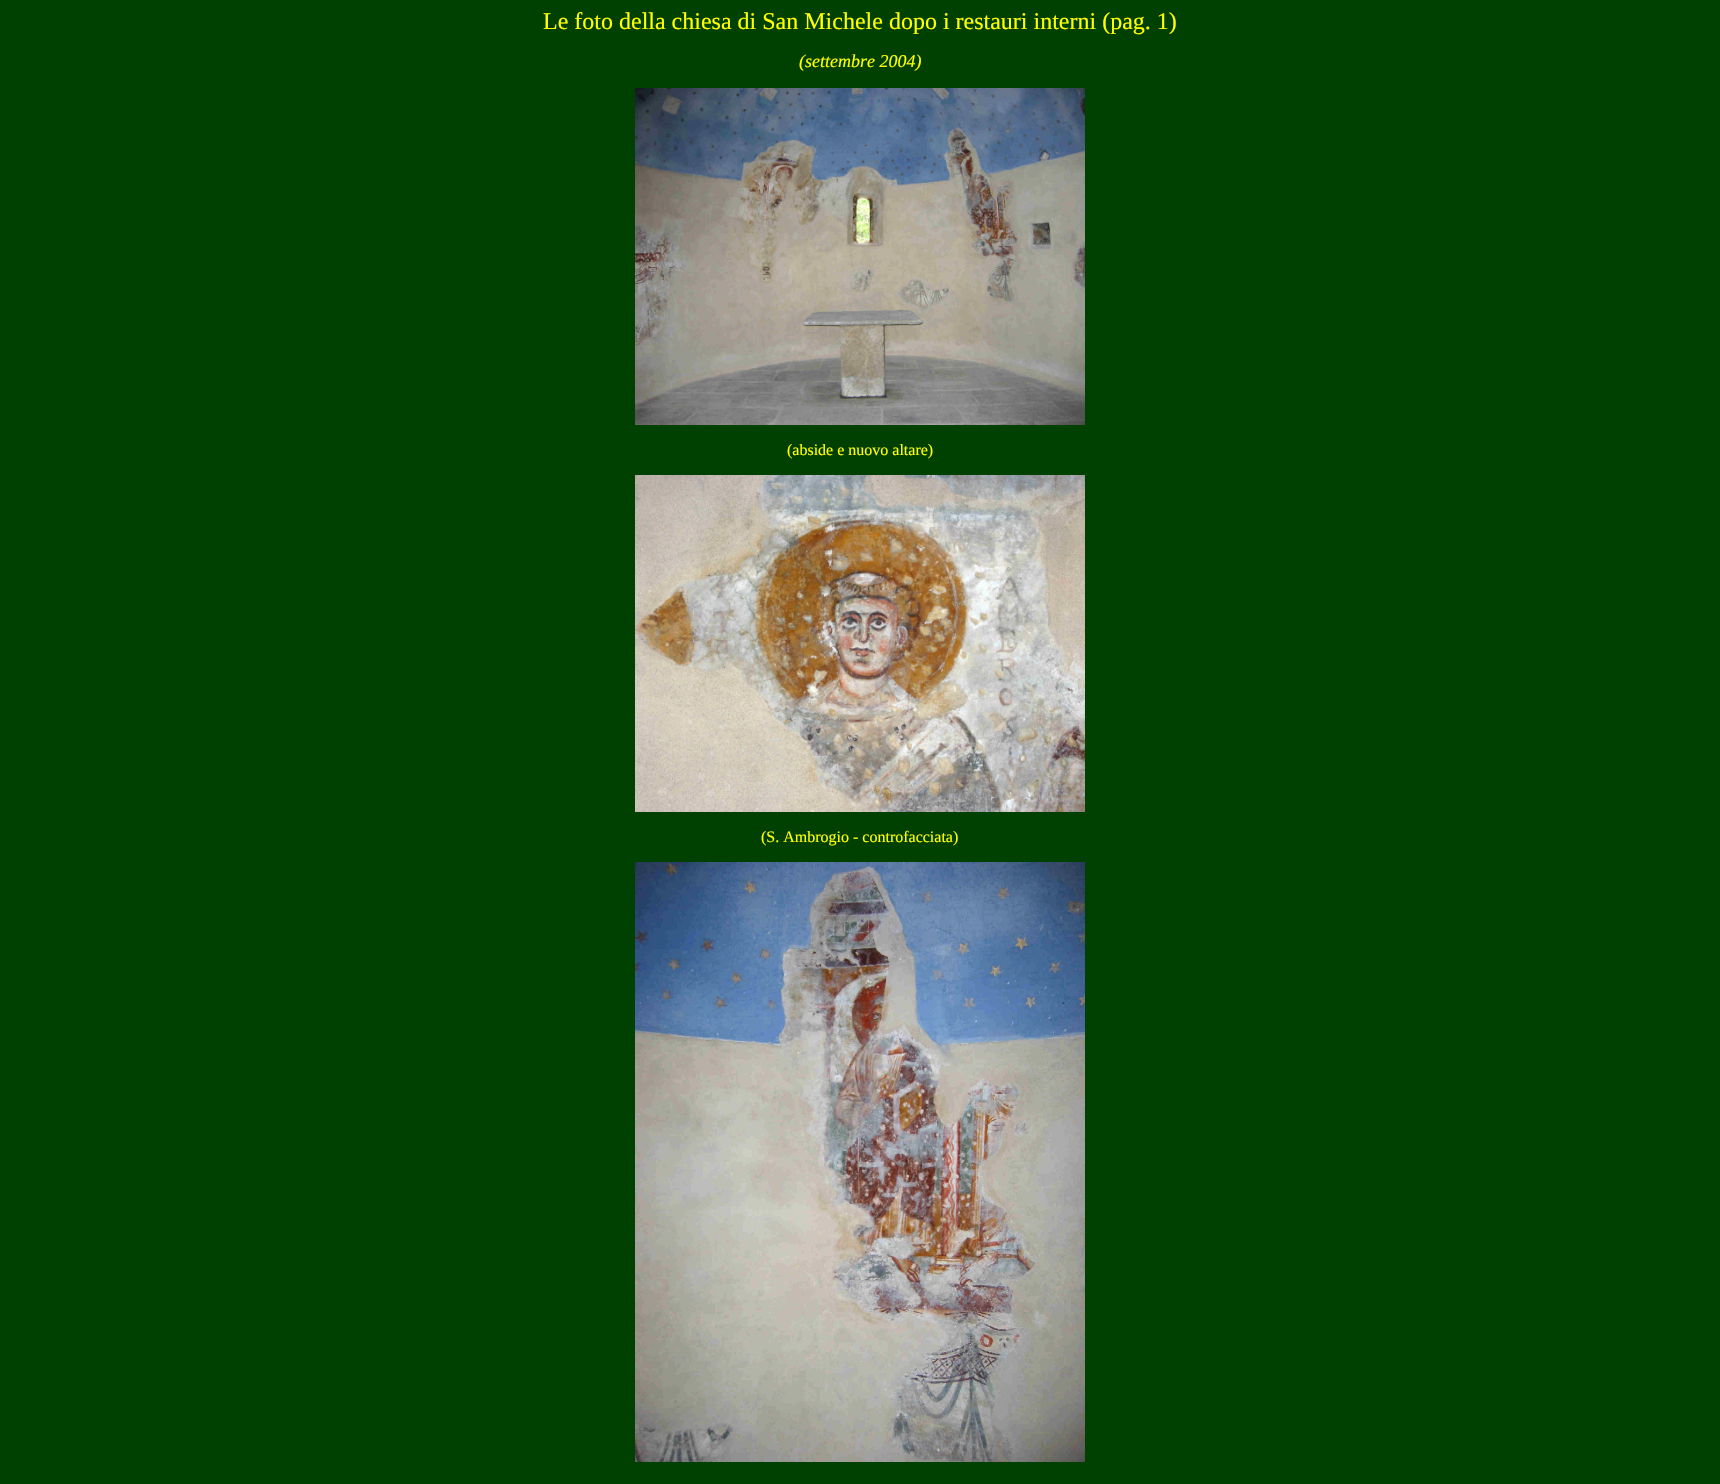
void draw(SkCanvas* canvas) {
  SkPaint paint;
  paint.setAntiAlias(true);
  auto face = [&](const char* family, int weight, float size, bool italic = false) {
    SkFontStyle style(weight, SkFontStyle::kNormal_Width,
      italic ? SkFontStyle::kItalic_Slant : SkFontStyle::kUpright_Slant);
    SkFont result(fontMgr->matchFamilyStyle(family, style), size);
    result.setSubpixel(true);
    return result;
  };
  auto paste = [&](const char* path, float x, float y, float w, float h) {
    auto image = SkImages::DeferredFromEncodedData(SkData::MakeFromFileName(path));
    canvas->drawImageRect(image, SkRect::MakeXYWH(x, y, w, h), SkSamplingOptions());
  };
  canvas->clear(0xff004000);
  paste("img/1.png", 635, 88, 450, 337);
  paste("img/2.png", 635, 475, 450, 337);
  paste("img/3.png", 635, 862, 450, 600);
  auto f0 = face("Liberation Serif", 400, 24);
  paint.setColor(0xffffff00);
  canvas->drawString("Le foto della chiesa di San Michele dopo i restauri interni (pag. 1)", 543, 29, f0, paint);
  auto f1 = face("Liberation Serif", 400, 18, true);
  canvas->drawString("(settembre 2004)", 799, 67, f1, paint);
  auto f2 = face("Liberation Serif", 400, 16);
  canvas->drawString("(abside e nuovo altare)", 787, 455, f2, paint);
  canvas->drawString("(S. Ambrogio - controfacciata)", 761, 842, f2, paint);
}
